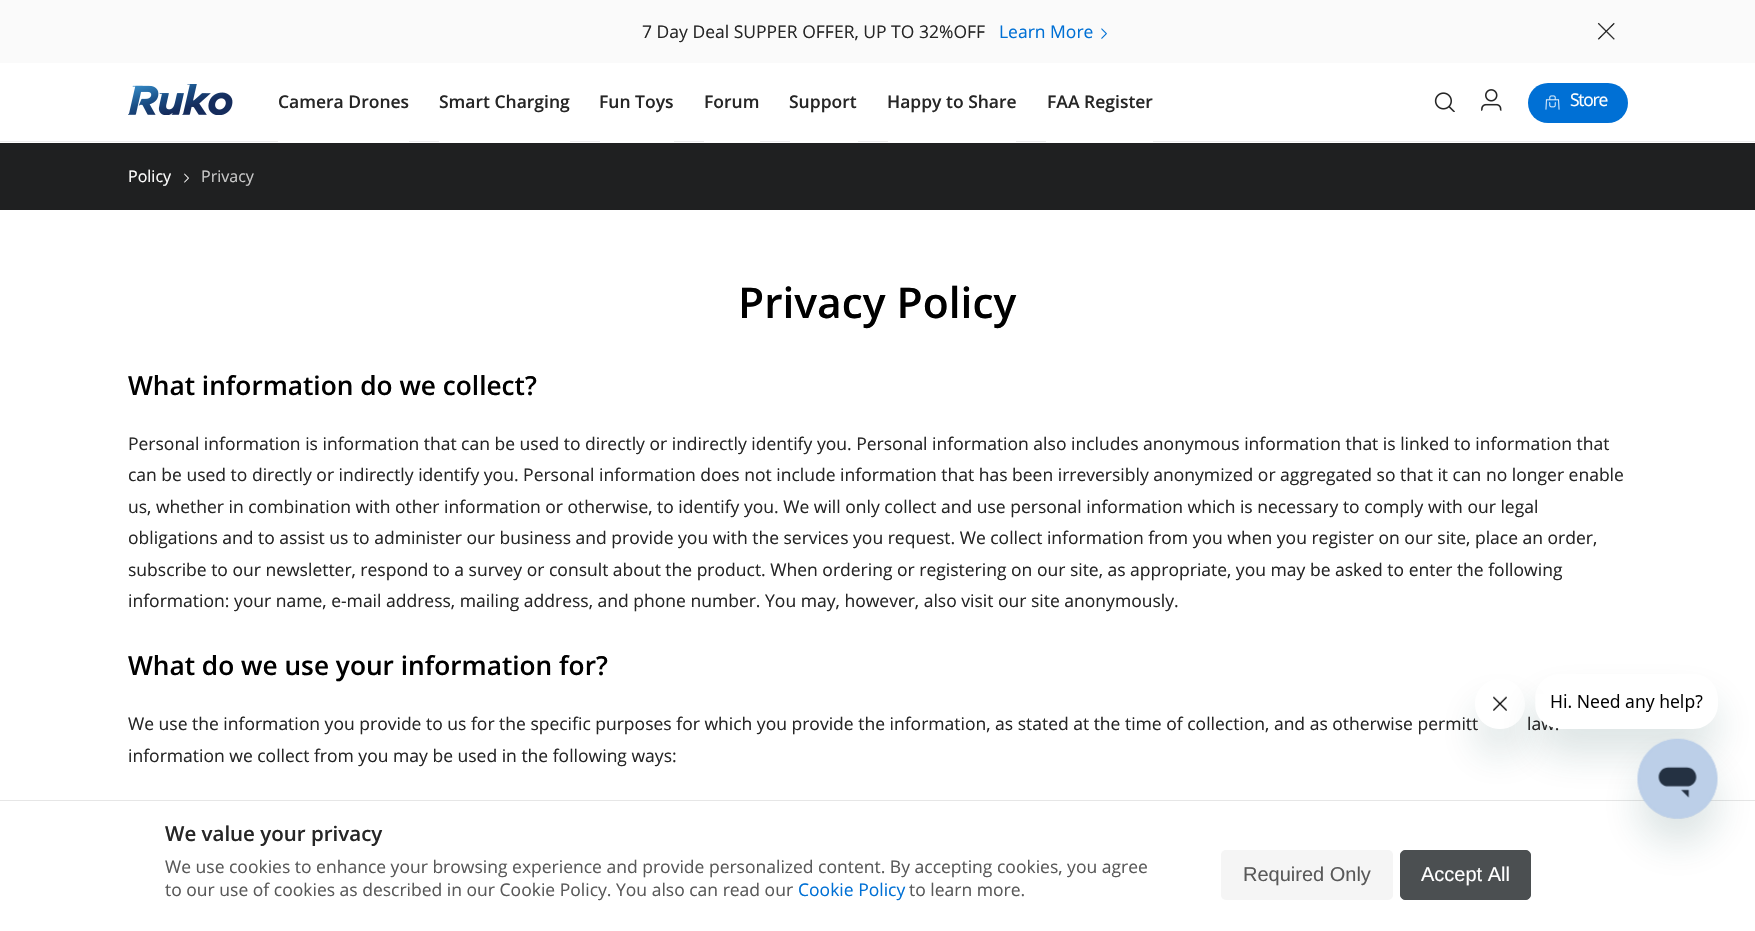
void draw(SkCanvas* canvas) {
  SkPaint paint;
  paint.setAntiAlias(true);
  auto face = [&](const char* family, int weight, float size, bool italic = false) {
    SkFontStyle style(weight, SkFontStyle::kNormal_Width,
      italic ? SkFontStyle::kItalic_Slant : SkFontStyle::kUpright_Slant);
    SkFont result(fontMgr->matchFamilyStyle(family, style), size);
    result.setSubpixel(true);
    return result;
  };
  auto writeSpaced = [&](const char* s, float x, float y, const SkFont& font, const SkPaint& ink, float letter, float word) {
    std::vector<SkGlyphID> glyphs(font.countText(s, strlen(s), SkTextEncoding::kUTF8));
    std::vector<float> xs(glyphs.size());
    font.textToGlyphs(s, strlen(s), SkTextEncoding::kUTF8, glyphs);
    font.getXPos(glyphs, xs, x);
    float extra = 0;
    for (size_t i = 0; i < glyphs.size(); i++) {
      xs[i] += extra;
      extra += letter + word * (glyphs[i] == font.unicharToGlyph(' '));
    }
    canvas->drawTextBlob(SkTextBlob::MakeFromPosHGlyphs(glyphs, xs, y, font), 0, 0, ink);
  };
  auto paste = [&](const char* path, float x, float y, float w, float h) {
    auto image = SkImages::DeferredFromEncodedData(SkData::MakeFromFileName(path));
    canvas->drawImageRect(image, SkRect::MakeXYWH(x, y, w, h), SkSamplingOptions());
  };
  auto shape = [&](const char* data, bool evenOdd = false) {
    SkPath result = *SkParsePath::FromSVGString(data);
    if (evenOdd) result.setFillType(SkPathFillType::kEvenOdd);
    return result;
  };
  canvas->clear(0xffffffff);
  paint.setColor(0xfffafafa);
  canvas->drawRect(SkRect::MakeXYWH(0, 0, 1755, 63), paint);
  paste("img/1.png", 1101, 28, 6, 11);
  paste("img/2.png", 1597, 22, 18, 18);
  paint.setColor(0xffececec);
  canvas->drawRect(SkRect::MakeXYWH(0, 141, 1755, 1), paint);
  paste("img/3.png", 128, 84, 105, 31);
  {
    const struct { float x, y, w, h; SkColor color; } items[] = {
      {278, 141, 131, 1, 0xffffffff},
      {439, 141, 131, 1, 0xffffffff},
      {600, 141, 74, 1, 0xffffffff},
      {704, 141, 56, 1, 0xffffffff},
      {790, 141, 68, 1, 0xffffffff},
      {888, 141, 128, 1, 0xffffffff},
      {1046, 141, 107, 1, 0xffffffff},
    };
    for (auto [x, y, w, h, color] : items) {
      paint.setColor(color);
      canvas->drawRect(SkRect::MakeXYWH(x, y, w, h), paint);
    }
  }
  paste("img/4.png", 1434, 92, 21, 20);
  paste("img/5.png", 1481, 89, 21, 22);
  paint.setColor(0xff0070d5);
  canvas->drawRoundRect(SkRect::MakeXYWH(1528, 83, 100, 40), 20, 20, paint);
  paste("img/6.png", 1545, 95, 15, 15);
  paint.setColor(0xff1f2021);
  canvas->drawRect(SkRect::MakeXYWH(0, 143, 1755, 67), paint);
  paste("img/7.png", 184, 173, 5, 10);
  paint.setColor(0xffe6e6e6);
  canvas->drawRect(SkRect::MakeXYWH(0, 800, 1755, 1), paint);
  paint.setColor(0xfff5f5f5);
  canvas->drawRoundRect(SkRect::MakeXYWH(1221, 850, 172, 50), 5, 5, paint);
  paint.setColor(0xff4b4f51);
  canvas->drawRoundRect(SkRect::MakeXYWH(1400.5f, 850.5f, 130, 49), 4.5f, 4.5f, paint);
  paint.setStroke(true);
  paint.setStrokeWidth(1);
  canvas->drawRoundRect(SkRect::MakeXYWH(1400.5f, 850.5f, 130, 49), 4.5f, 4.5f, paint);
  canvas->save();
  canvas->clipPath(shape("M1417 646H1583V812H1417ZM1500 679C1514 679 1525 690 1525 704C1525 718 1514 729 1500 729C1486 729 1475 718 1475 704C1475 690 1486 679 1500 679Z", true), true);
  paint.setStroke(false);
  paint.setColor(0x2617494d);
  paint.setMaskFilter(SkMaskFilter::MakeBlur(kNormal_SkBlurStyle, 19));
  canvas->drawRoundRect(SkRect::MakeXYWH(1475, 704, 50, 50), 25, 25, paint);
  paint.setMaskFilter(nullptr);
  canvas->restore();
  paste("img/9.png", 1481, 696, 35, 33);
  canvas->save();
  canvas->clipPath(shape("M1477 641H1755V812H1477ZM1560 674H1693C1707 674 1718 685 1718 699V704C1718 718 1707 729 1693 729H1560C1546 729 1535 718 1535 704V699C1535 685 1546 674 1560 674Z", true), true);
  paint.setMaskFilter(SkMaskFilter::MakeBlur(kNormal_SkBlurStyle, 19));
  canvas->drawRoundRect(SkRect::MakeXYWH(1535, 699, 183, 55), 25, 25, paint);
  paint.setMaskFilter(nullptr);
  canvas->restore();
  auto f0 = face("Open Sans", 400, 17.5f);
  paint.setColor(0xff262626);
  canvas->drawString("7 Day Deal SUPPER OFFER, UP TO 32%OFF", 642, 38, f0, paint);
  paint.setColor(0xff0070d5);
  canvas->drawString("Learn More", 999, 38, f0, paint);
  auto f1 = face("Open Sans", 600, 17.5f);
  paint.setColor(0xff262626);
  {
    const struct { const char* s; float x, y; } items[] = {
      {"Camera Drones", 278, 108},
      {"Smart Charging", 439, 108},
      {"Fun Toys", 599, 108},
      {"Forum", 704, 108},
      {"Support", 789, 108},
      {"Happy to Share", 887, 108},
      {"FAA Register", 1047, 108},
    };
    for (auto [s, x, y] : items) {
      canvas->drawString(s, x, y, f1, paint);
    }
  }
  paint.setColor(0xffffffff);
  writeSpaced("Store", 1570, 106, f0, paint, -1.25f, 0);
  auto f2 = face("Open Sans", 400, 16);
  canvas->drawString("Policy", 128, 182, f2, paint);
  paint.setColor(0xffc8c8c8);
  canvas->drawString("Privacy", 201, 182, f2, paint);
  auto f3 = face("Open Sans", 600, 42.5f);
  paint.setColor(0xff000000);
  canvas->drawString("Privacy Policy", 738, 318, f3, paint);
  auto f4 = face("Open Sans", 600, 26.25f);
  canvas->drawString("What information do we collect?", 128, 395, f4, paint);
  paint.setColor(0xff262626);
  {
    const struct { const char* s; float x, y; } items[] = {
      {"Personal information is information that can be used to directly or indirectly identify you. Personal information also includes anonymous information that is linked to information that", 128, 450},
      {"can be used to directly or indirectly identify you. Personal information does not include information that has been irreversibly anonymized or aggregated so that it can no longer enable", 128, 481},
      {"us, whether in combination with other information or otherwise, to identify you. We will only collect and use personal information which is necessary to comply with our legal", 128, 513},
      {"obligations and to assist us to administer our business and provide you with the services you request. We collect information from you when you register on our site, place an order,", 128, 544},
      {"subscribe to our newsletter, respond to a survey or consult about the product. When ordering or registering on our site, as appropriate, you may be asked to enter the following", 128, 576},
      {"information: your name, e-mail address, mailing address, and phone number. You may, however, also visit our site anonymously.", 128, 607},
    };
    for (auto [s, x, y] : items) {
      canvas->drawString(s, x, y, f0, paint);
    }
  }
  paint.setColor(0xff000000);
  canvas->drawString("What do we use your information for?", 128, 675, f4, paint);
  paint.setColor(0xff262626);
  {
    const struct { const char* s; float x, y; } items[] = {
      {"We use the information you provide to us for the specific purposes for which you provide the information, as stated at the time of collection, and as otherwise permitt", 128, 730},
      {"law.", 1527, 730},
      {"information we collect from you may be used in the following ways:", 128, 762},
    };
    for (auto [s, x, y] : items) {
      canvas->drawString(s, x, y, f0, paint);
    }
  }
  auto f5 = face("Open Sans", 600, 20.5f);
  canvas->drawString("We value your privacy", 165, 841, f5, paint);
  paint.setColor(0xff595959);
  canvas->drawString("We use cookies to enhance your browsing experience and provide personalized content. By accepting cookies, you agree", 165, 873, f0, paint);
  canvas->drawString("to our use of cookies as described in our Cookie Policy. You also can read our", 165, 896, f0, paint);
  paint.setColor(0xff0070d5);
  canvas->drawString("Cookie Policy", 798, 896, f0, paint);
  paint.setColor(0xff595959);
  canvas->drawString("to learn more.", 909, 896, f0, paint);
  auto f6 = face("Liberation Sans", 400, 20);
  canvas->drawString("Required Only", 1243, 881, f6, paint);
  paint.setColor(0xffffffff);
  canvas->drawString("Accept All", 1421, 881, f6, paint);
  paste("img/8.png", 1536, 694, 167, 35);
  paint.setColor(0x2617494d);
  paint.setMaskFilter(SkMaskFilter::MakeBlur(kNormal_SkBlurStyle, 19));
  canvas->drawRoundRect(SkRect::MakeXYWH(1638, 764, 80, 80), 40, 40, paint);
  paint.setMaskFilter(nullptr);
  paste("img/10.png", 1637, 738, 81, 81);
}
